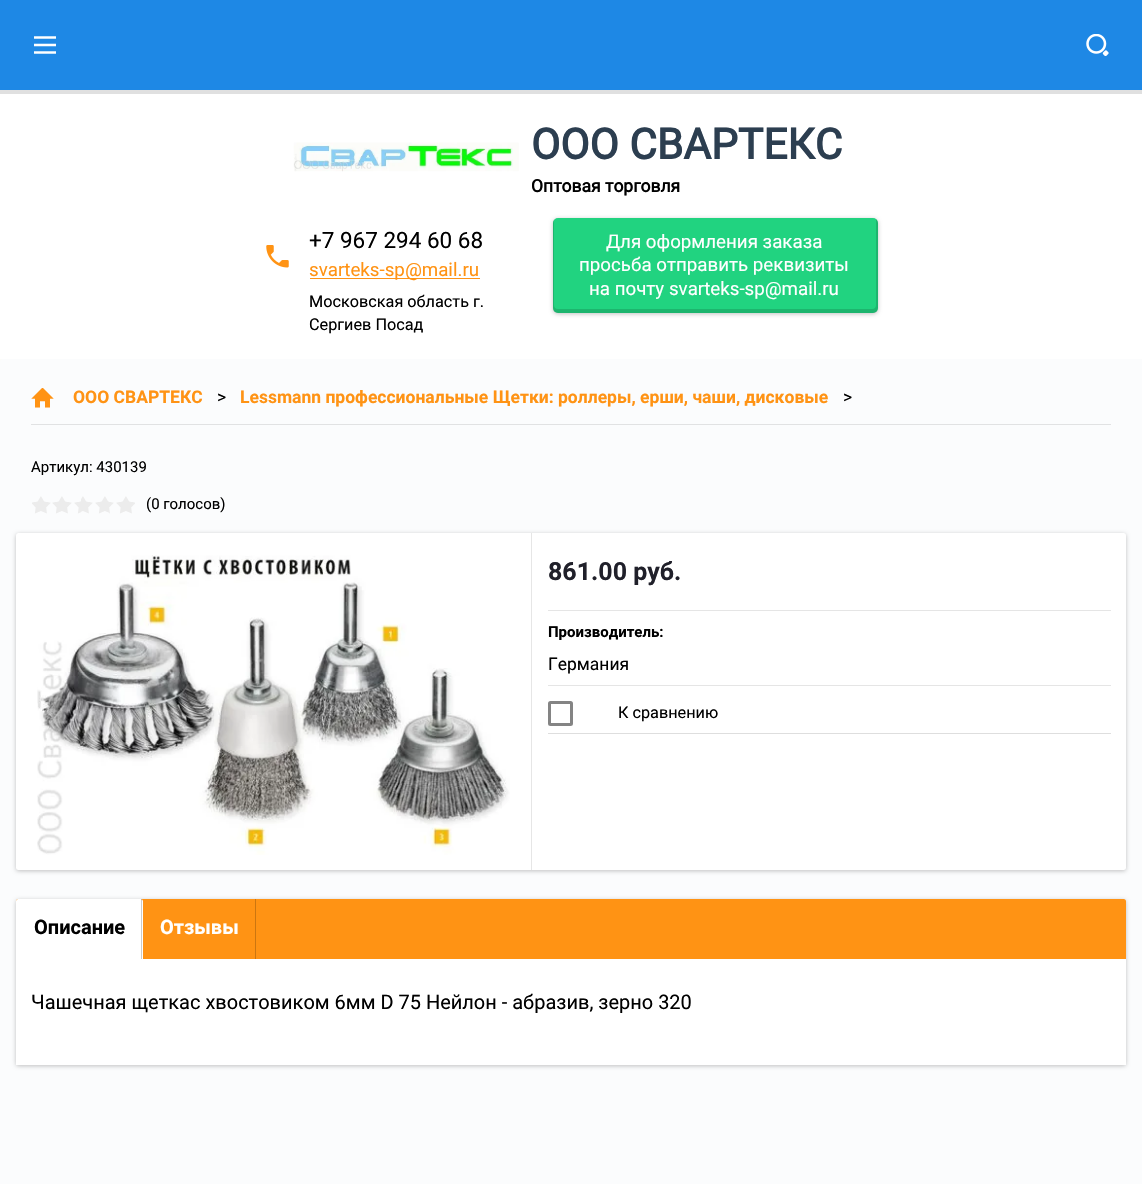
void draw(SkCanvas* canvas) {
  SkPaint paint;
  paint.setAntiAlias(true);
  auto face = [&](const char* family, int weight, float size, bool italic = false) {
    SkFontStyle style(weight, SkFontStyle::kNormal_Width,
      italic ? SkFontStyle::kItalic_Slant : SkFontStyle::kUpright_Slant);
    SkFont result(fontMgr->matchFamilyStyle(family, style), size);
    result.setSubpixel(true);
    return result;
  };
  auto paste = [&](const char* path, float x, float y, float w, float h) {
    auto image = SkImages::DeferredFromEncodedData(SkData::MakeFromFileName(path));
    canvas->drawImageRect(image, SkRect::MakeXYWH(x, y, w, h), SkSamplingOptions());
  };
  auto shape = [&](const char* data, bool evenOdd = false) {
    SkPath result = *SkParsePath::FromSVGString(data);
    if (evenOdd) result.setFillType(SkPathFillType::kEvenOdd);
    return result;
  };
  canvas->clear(0xfffefcf8);
  paint.setColor(0xffffffff);
  canvas->drawRect(SkRect::MakeXYWH(0, 94, 1142, 265), paint);
  paint.setColor(0xffe0e0e0);
  canvas->drawPath(shape("M0 90V94H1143V4H1142V90Z"), paint);
  paint.setColor(0xff1e88e5);
  canvas->drawRect(SkRect::MakeXYWH(0, 0, 1142, 90), paint);
  paste("img/1.png", 34, 36, 22, 18);
  paste("img/2.png", 1086, 34, 23, 22);
  paste("img/3.png", 293, 142, 226, 30);
  paste("img/4.png", 266, 245, 23, 23);
  paint.setColor(0xffff9314);
  canvas->drawRect(SkRect::MakeXYWH(310, 278, 170, 1), paint);
  paint.setColor(0x3d000000);
  paint.setMaskFilter(SkMaskFilter::MakeBlur(kNormal_SkBlurStyle, 2));
  canvas->drawRoundRect(SkRect::MakeXYWH(553, 219, 325, 95), 5, 5, paint);
  paint.setMaskFilter(nullptr);
  paint.setColor(0xff21d380);
  canvas->drawRoundRect(SkRect::MakeXYWH(553, 218, 325, 95), 5, 5, paint);
  paint.setColor(0x24000000);
  canvas->drawPath(shape("M554 220C553 221 553 222 553 223V308C553 311 555 313 558 313H873C876 313 878 311 878 308V223C878 221 877 220 876 219V305C876 307 875 309 872 309H558C555 309 554 307 554 305Z"), paint);
  paint.setColor(0xfffbfcfd);
  canvas->drawRoundRect(SkRect::MakeXYWH(0, 359, 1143, 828), 2.5f, 2.5f, paint);
  paint.setColor(0xffe1e2e3);
  canvas->drawRect(SkRect::MakeXYWH(31, 424, 1080, 1), paint);
  paste("img/5.png", 31, 388, 23, 20);
  paste("img/6.png", 32, 496, 103, 18);
  paint.setColor(0x3d000000);
  paint.setMaskFilter(SkMaskFilter::MakeBlur(kNormal_SkBlurStyle, 2));
  canvas->drawRoundRect(SkRect::MakeXYWH(16, 534, 1110, 337), 2.5f, 2.5f, paint);
  paint.setMaskFilter(nullptr);
  paint.setColor(0xffffffff);
  canvas->drawRoundRect(SkRect::MakeXYWH(16, 533, 1110, 337), 2.5f, 2.5f, paint);
  paste("img/7.png", 37, 555, 473, 300);
  {
    const struct { float x, y, w, h; SkColor color; } items[] = {
      {531, 533, 1, 337, 0xffe6e6e6},
      {548, 610, 563, 1, 0xffe5e5e5},
      {548, 685, 563, 1, 0xffe5e5e5},
      {548, 733, 563, 1, 0xffdedede},
    };
    for (auto [x, y, w, h, color] : items) {
      paint.setColor(color);
      canvas->drawRect(SkRect::MakeXYWH(x, y, w, h), paint);
    }
  }
  paint.setStroke(true);
  paint.setStrokeWidth(3);
  paint.setColor(0xff848484);
  canvas->drawRoundRect(SkRect::MakeXYWH(549.5f, 702.5f, 22, 22), 1, 1, paint);
  paint.setStroke(false);
  paint.setColor(0x3d000000);
  paint.setMaskFilter(SkMaskFilter::MakeBlur(kNormal_SkBlurStyle, 2));
  canvas->drawRoundRect(SkRect::MakeXYWH(16, 900, 1110, 166), 2.5f, 2.5f, paint);
  paint.setMaskFilter(nullptr);
  paint.setColor(0xffff9314);
  canvas->drawRoundRect(SkRect::MakeXYWH(16, 899, 1110, 166), 2.5f, 2.5f, paint);
  paint.setColor(0xffffffff);
  canvas->drawPath(shape("M18.5 899H140.5C142 899 143 900 143 901.5V959H16V901.5C16 900 17 899 18.5 899Z"), paint);
  {
    const struct { float x, y, w, h; SkColor color; } items[] = {
      {141, 899, 1, 60, 0x33000000},
      {255, 899, 1, 60, 0xffcc7610},
      {16, 959, 1110, 106, 0xffffffff},
    };
    for (auto [x, y, w, h, color] : items) {
      paint.setColor(color);
      canvas->drawRect(SkRect::MakeXYWH(x, y, w, h), paint);
    }
  }
  auto f0 = face("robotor", 700, 42.5f);
  paint.setColor(0xff2c3e50);
  canvas->drawString("ООО СВАРТЕКС", 531, 159, f0, paint);
  auto f1 = face("robotor", 700, 17.5f);
  paint.setColor(0xff000000);
  canvas->drawString("Оптовая торговля", 531, 192, f1, paint);
  auto f2 = face("robotor", 400, 22.5f);
  canvas->drawString("+7 967 294 60 68", 309, 248, f2, paint);
  auto f3 = face("robotor", 400, 18.75f);
  paint.setColor(0xffff9314);
  canvas->drawString("svarteks-sp@mail.ru", 309, 276, f3, paint);
  auto f4 = face("robotor", 400, 16.25f);
  paint.setColor(0xff000000);
  canvas->drawString("Московская область г.", 309, 307, f4, paint);
  canvas->drawString("Сергиев Посад", 309, 330, f4, paint);
  paint.setColor(0xffffffff);
  {
    const struct { const char* s; float x, y; } items[] = {
      {"Для оформления заказа", 606, 248},
      {"просьба отправить реквизиты", 579, 271},
      {"на почту svarteks-sp@mail.ru", 589, 295},
    };
    for (auto [s, x, y] : items) {
      canvas->drawString(s, x, y, f3, paint);
    }
  }
  auto f5 = face("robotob", 700, 17.5f);
  paint.setColor(0xffff9314);
  canvas->drawString("ООО СВАРТЕКС", 73, 403, f5, paint);
  auto f6 = face("robotor", 400, 17.5f);
  paint.setColor(0xff000000);
  canvas->drawString(">", 217, 403, f6, paint);
  paint.setColor(0xffff9314);
  canvas->drawString("Lessmann профессиональные Щетки: роллеры, ерши, чаши, дисковые", 240, 403, f5, paint);
  paint.setColor(0xff000000);
  canvas->drawString(">", 843, 403, f6, paint);
  auto f7 = face("robotor", 400, 15);
  canvas->drawString("Артикул: 430139", 31, 472, f7, paint);
  canvas->drawString("(0 голосов)", 146, 509, f7, paint);
  auto f8 = face("robotob", 700, 25);
  paint.setColor(0xff20202a);
  canvas->drawString("861.00 руб.", 548, 580, f8, paint);
  auto f9 = face("robotob", 700, 15);
  paint.setColor(0xff000000);
  canvas->drawString("Производитель:", 548, 637, f9, paint);
  canvas->drawString("Германия", 548, 670, f6, paint);
  canvas->drawString("К сравнению", 618, 718, f4, paint);
  auto f10 = face("robotob", 700, 20);
  canvas->drawString("Описание", 34, 934, f10, paint);
  paint.setColor(0xffffffff);
  canvas->drawString("Отзывы", 160, 934, f10, paint);
  auto f11 = face("robotor", 400, 20);
  paint.setColor(0xff000000);
  canvas->drawString("Чашечная щеткас хвостовиком 6мм D 75 Нейлон - абразив, зерно 320", 31, 1009, f11, paint);
}
